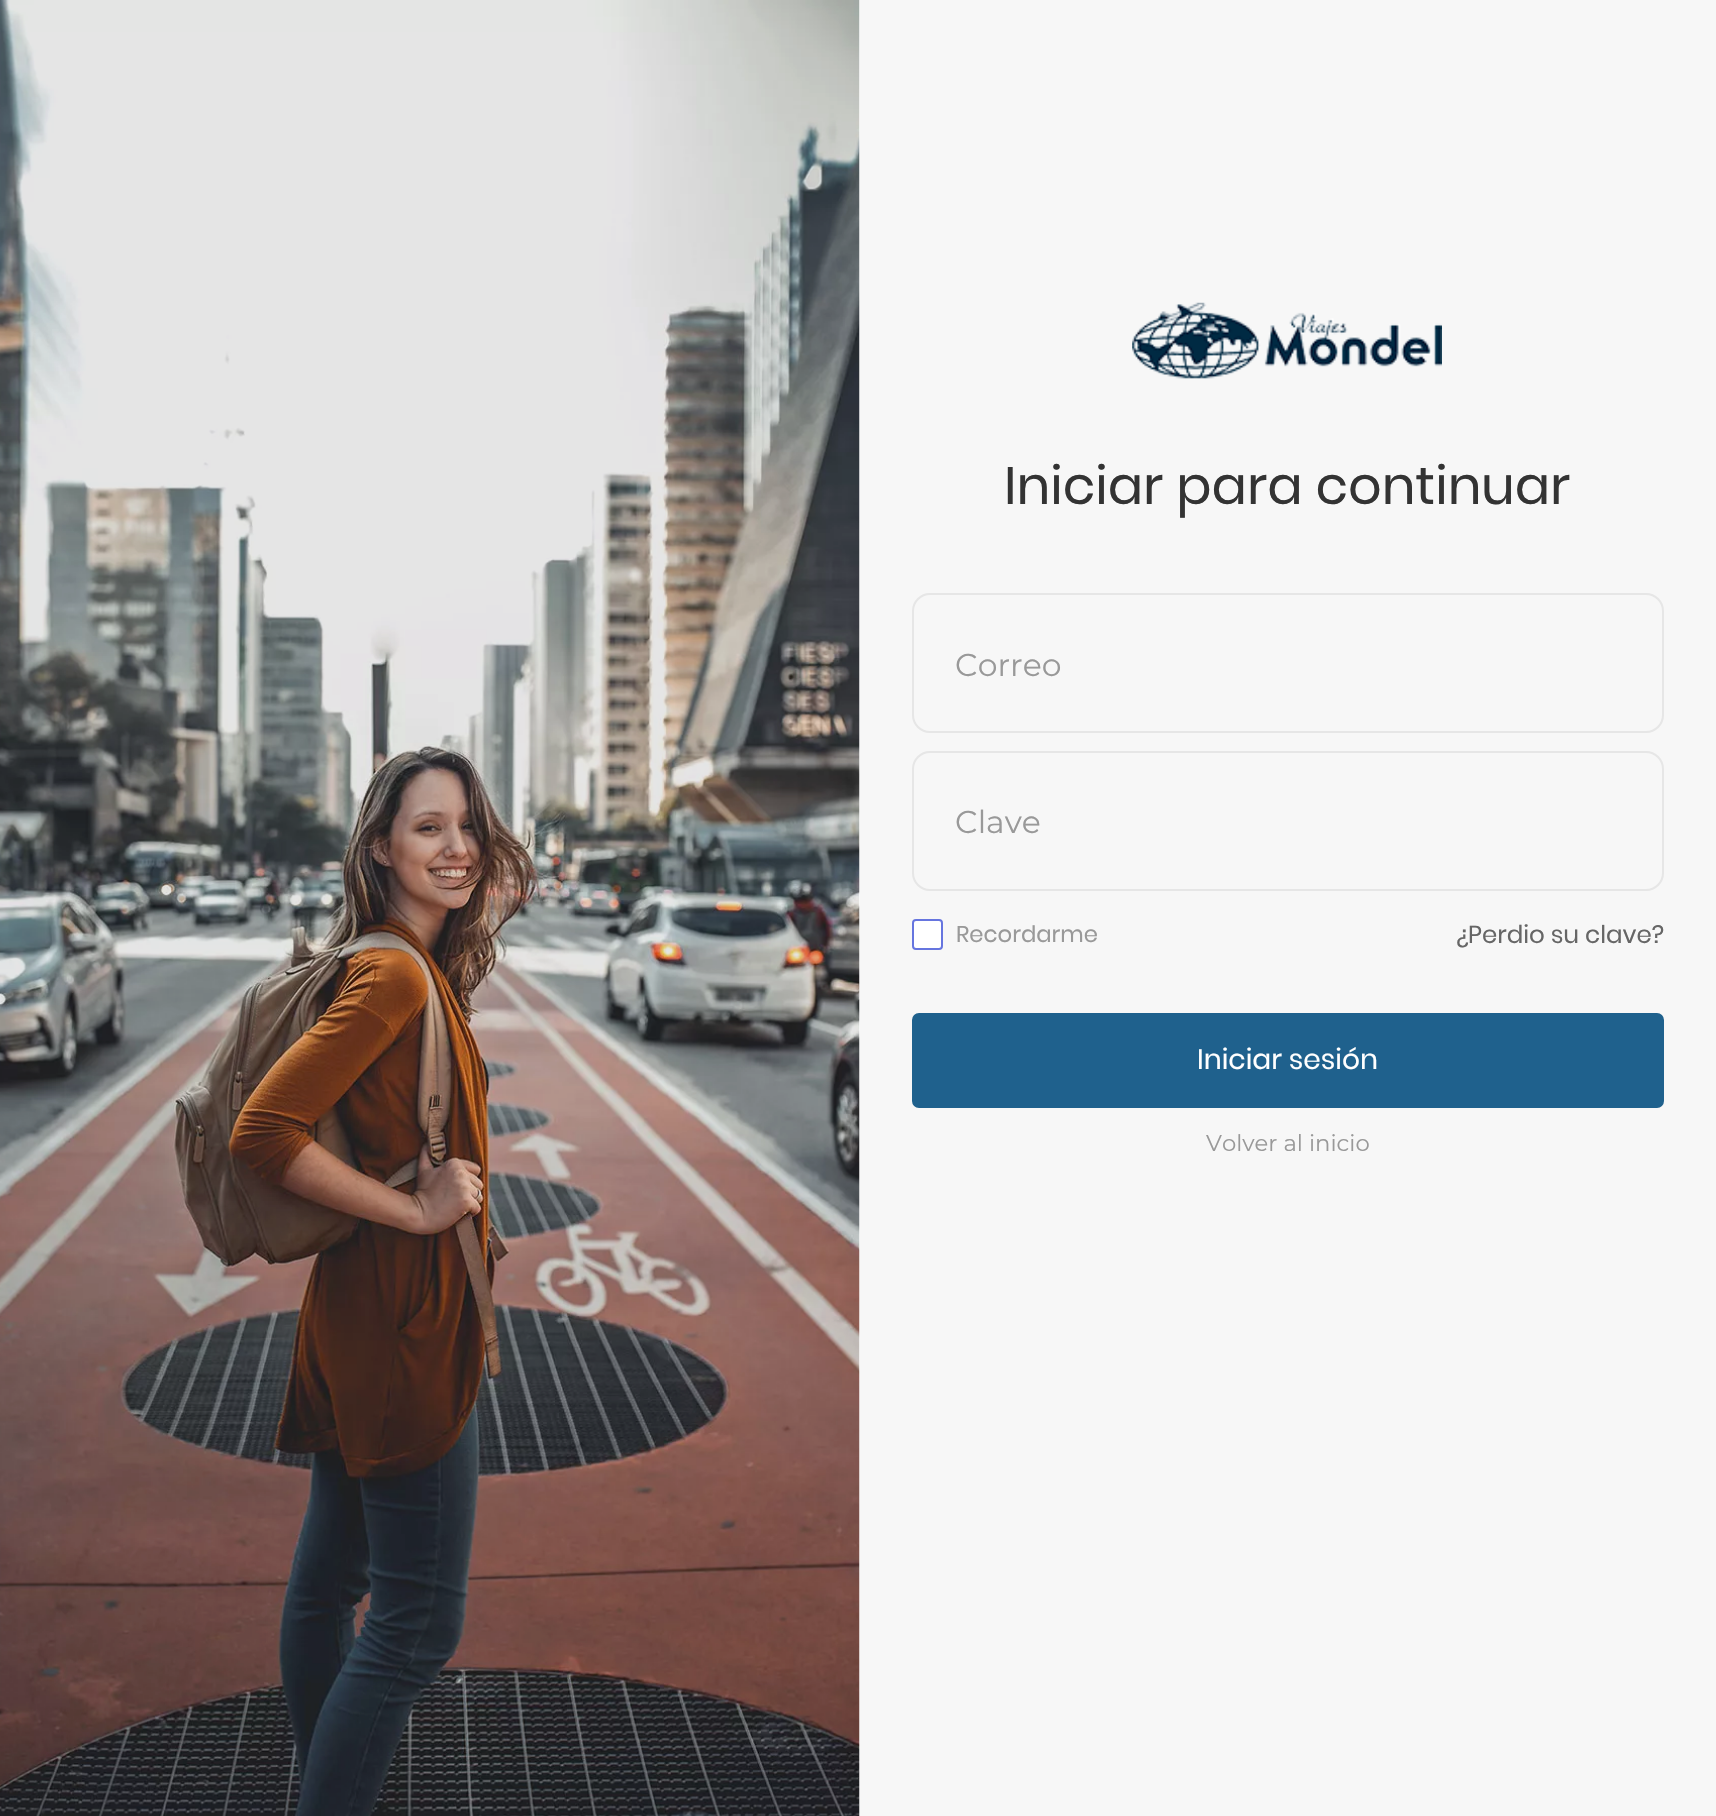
void draw(SkCanvas* canvas) {
  SkPaint paint;
  paint.setAntiAlias(true);
  auto face = [&](const char* family, int weight, float size, bool italic = false) {
    SkFontStyle style(weight, SkFontStyle::kNormal_Width,
      italic ? SkFontStyle::kItalic_Slant : SkFontStyle::kUpright_Slant);
    SkFont result(fontMgr->matchFamilyStyle(family, style), size);
    result.setSubpixel(true);
    return result;
  };
  auto paste = [&](const char* path, float x, float y, float w, float h) {
    auto image = SkImages::DeferredFromEncodedData(SkData::MakeFromFileName(path));
    canvas->drawImageRect(image, SkRect::MakeXYWH(x, y, w, h), SkSamplingOptions());
  };
  canvas->clear(0xfff7f7f7);
  paste("img/1.png", 0, 0, 860, 1816);
  paste("img/2.png", 1132, 302, 310, 77);
  paint.setStroke(true);
  paint.setStrokeWidth(2);
  paint.setColor(0xffe6e6e6);
  canvas->drawRoundRect(SkRect::MakeXYWH(913, 594, 750, 138), 17, 17, paint);
  canvas->drawRoundRect(SkRect::MakeXYWH(913, 752, 750, 138), 17, 17, paint);
  paint.setStroke(false);
  paint.setColor(0xffffffff);
  canvas->drawRoundRect(SkRect::MakeXYWH(913, 920, 29, 29), 3, 3, paint);
  paint.setStroke(true);
  paint.setColor(0xff6675df);
  canvas->drawRoundRect(SkRect::MakeXYWH(913, 920, 29, 29), 3, 3, paint);
  paint.setStroke(false);
  paint.setColor(0xff1f618d);
  canvas->drawRoundRect(SkRect::MakeXYWH(913, 1014, 750, 93), 6, 6, paint);
  paint.setStroke(true);
  canvas->drawRoundRect(SkRect::MakeXYWH(913, 1014, 750, 93), 6, 6, paint);
  auto f0 = face("Poppins", 400, 52.5f);
  paint.setStroke(false);
  paint.setColor(0xff333333);
  canvas->drawString("Iniciar para continuar", 1004, 504, f0, paint);
  auto f1 = face("Montserrat", 400, 31.5f);
  paint.setColor(0xff999999);
  canvas->drawString("Correo", 955, 676, f1, paint);
  canvas->drawString("Clave", 955, 833, f1, paint);
  auto f2 = face("Poppins", 400, 22.75f);
  canvas->drawString("Recordarme", 956, 942, f2, paint);
  auto f3 = face("Poppins", 400, 24.5f);
  paint.setColor(0xff666666);
  canvas->drawString("¿Perdio su clave?", 1456, 943, f3, paint);
  auto f4 = face("Poppins", 400, 28);
  paint.setColor(0xffffffff);
  canvas->drawString("Iniciar sesión", 1197, 1069, f4, paint);
  auto f5 = face("Montserrat", 400, 22.75f);
  paint.setColor(0xff999999);
  canvas->drawString("Volver al inicio", 1206, 1151, f5, paint);
}
